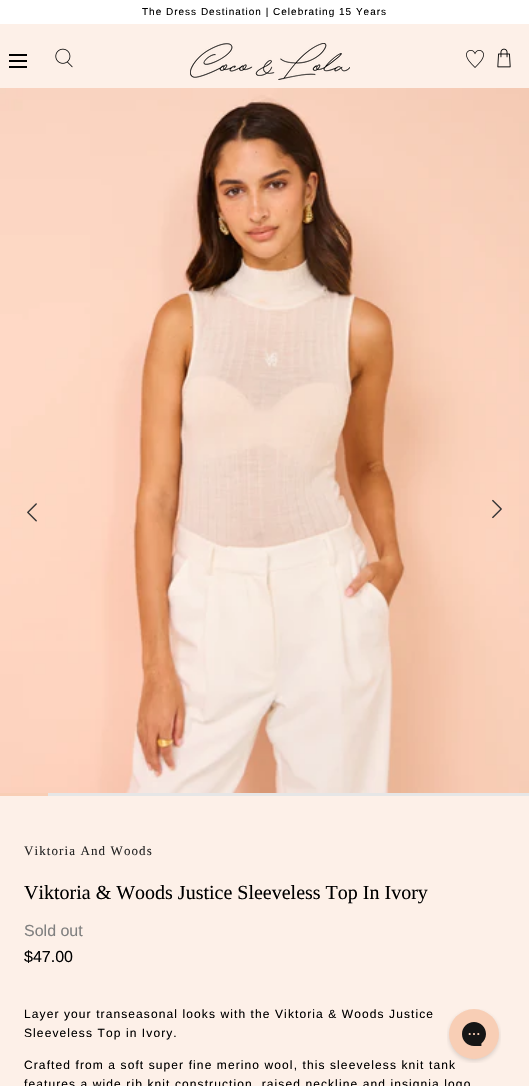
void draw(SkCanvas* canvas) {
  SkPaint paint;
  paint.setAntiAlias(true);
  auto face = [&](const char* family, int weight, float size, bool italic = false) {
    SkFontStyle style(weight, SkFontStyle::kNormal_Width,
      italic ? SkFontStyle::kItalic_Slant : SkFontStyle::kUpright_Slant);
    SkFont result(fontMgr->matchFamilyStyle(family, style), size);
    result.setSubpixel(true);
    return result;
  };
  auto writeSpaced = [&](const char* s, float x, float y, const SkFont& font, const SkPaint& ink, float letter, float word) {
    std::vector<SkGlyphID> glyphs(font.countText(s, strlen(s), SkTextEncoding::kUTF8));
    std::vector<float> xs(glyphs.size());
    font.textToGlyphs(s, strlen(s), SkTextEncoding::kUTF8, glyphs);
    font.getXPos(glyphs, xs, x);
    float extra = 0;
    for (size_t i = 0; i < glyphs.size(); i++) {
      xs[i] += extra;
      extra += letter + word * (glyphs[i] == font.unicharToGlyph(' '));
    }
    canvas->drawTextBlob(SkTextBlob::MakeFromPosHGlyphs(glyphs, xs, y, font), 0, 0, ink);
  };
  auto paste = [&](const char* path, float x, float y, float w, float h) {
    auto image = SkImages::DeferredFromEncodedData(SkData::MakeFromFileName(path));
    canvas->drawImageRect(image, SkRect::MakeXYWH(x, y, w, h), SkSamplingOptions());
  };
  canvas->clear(0xfffdf0e8);
  {
    const struct { float x, y, w, h; SkColor color; } items[] = {
      {0, 0, 529, 24, 0xffffffff},
      {9, 66, 18, 2, 0xff000000},
      {9, 60, 18, 2, 0xff000000},
      {9, 54, 18, 2, 0xff000000},
    };
    for (auto [x, y, w, h, color] : items) {
      paint.setColor(color);
      canvas->drawRect(SkRect::MakeXYWH(x, y, w, h), paint);
    }
  }
  paste("img/1.png", 55, 48, 18, 20);
  paste("img/2.png", 190, 43, 160, 37);
  paste("img/3.png", 466, 50, 18, 18);
  paste("img/4.png", 497, 48, 14, 20);
  paste("img/5.png", 0, 88, 529, 705);
  paint.setColor(0xffe6e6e6);
  canvas->drawRect(SkRect::MakeXYWH(48, 793, 481, 3), paint);
  paint.setColor(0xfff8ceb5);
  canvas->drawRect(SkRect::MakeXYWH(0, 793, 48, 3), paint);
  paste("img/6.png", 27, 503, 10, 19);
  paste("img/7.png", 492, 499, 10, 20);
  auto f0 = face("Liberation Sans", 400, 10);
  paint.setColor(0xff000000);
  writeSpaced("The Dress Destination | Celebrating 15 Years", 142, 15, f0, paint, 1, 0);
  auto f1 = face("Liberation Serif", 400, 13);
  paint.setColor(0xff252525);
  writeSpaced("Viktoria And Woods", 24, 855, f1, paint, 1.1f, 0);
  auto f2 = face("Liberation Serif", 400, 20);
  paint.setColor(0xff000000);
  canvas->drawString("Viktoria & Woods Justice Sleeveless Top In Ivory", 24, 899, f2, paint);
  auto f3 = face("Liberation Sans", 400, 16);
  paint.setColor(0xff808080);
  canvas->drawString("Sold out", 24, 936, f3, paint);
  paint.setColor(0xff000000);
  canvas->drawString("$47.00", 24, 962, f3, paint);
  auto f4 = face("Liberation Sans", 400, 12);
  {
    const struct { const char* s; float x, y; } items[] = {
      {"Layer your transeasonal looks with the Viktoria & Woods Justice", 24, 1018},
      {"Sleeveless Top in Ivory.", 24, 1037},
      {"Crafted from a soft super fine merino wool, this sleeveless knit tank", 24, 1069},
      {"features a wide rib knit construction, raised neckline and insignia logo", 24, 1088},
    };
    for (auto [s, x, y] : items) {
      writeSpaced(s, x, y, f4, paint, 1.1f, 0);
    }
  }
  paste("img/8.png", 447, 1009, 54, 54);
}
